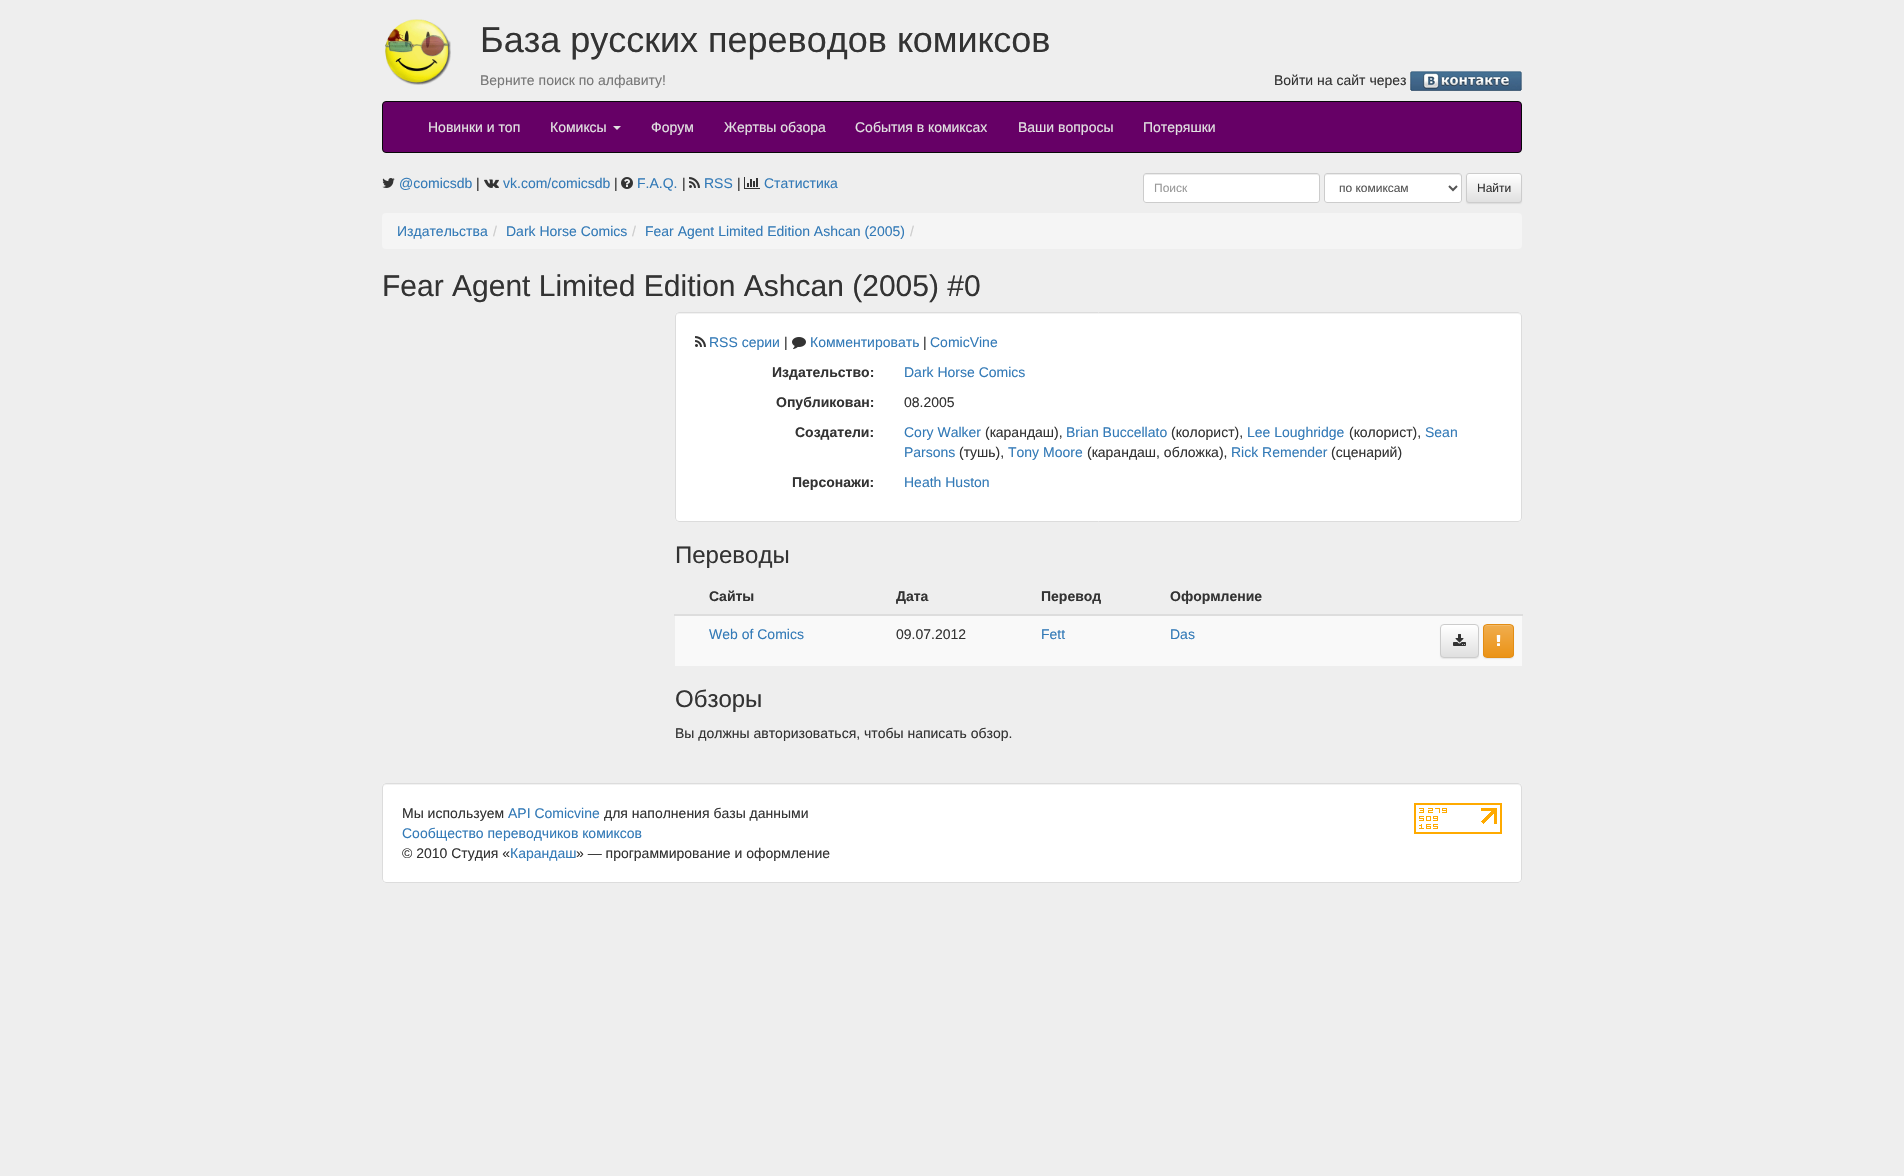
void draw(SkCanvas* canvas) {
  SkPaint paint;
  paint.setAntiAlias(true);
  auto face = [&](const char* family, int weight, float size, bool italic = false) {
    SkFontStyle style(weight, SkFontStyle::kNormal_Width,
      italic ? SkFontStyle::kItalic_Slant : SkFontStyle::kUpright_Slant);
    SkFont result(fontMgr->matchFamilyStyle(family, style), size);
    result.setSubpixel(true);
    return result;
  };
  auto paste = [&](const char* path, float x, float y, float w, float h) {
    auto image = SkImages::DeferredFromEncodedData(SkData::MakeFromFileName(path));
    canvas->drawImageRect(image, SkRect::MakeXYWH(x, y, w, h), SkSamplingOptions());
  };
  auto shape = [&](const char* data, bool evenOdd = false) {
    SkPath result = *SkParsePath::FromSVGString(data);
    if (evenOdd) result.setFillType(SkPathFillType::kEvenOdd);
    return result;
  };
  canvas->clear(0xffeeeeee);
  paste("img/1.png", 385, 19, 66, 66);
  paste("img/2.png", 1410, 71, 112, 20);
  paint.setColor(0xff660066);
  canvas->drawRoundRect(SkRect::MakeXYWH(382.5f, 101.5f, 1139, 51), 3.5f, 3.5f, paint);
  paint.setStroke(true);
  paint.setStrokeWidth(1);
  paint.setColor(0xff080808);
  canvas->drawRoundRect(SkRect::MakeXYWH(382.5f, 101.5f, 1139, 51), 3.5f, 3.5f, paint);
  paint.setStroke(false);
  paint.setColor(0xffe2e2e2);
  canvas->drawPath(shape("M613 126H621L617 130Z"), paint);
  paste("img/3.png", 382, 178, 13, 10);
  paste("img/4.png", 484, 179, 15, 9);
  paste("img/5.png", 621, 177, 12, 12);
  paste("img/6.png", 689, 177, 11, 11);
  paste("img/7.png", 744, 177, 16, 12);
  paint.setColor(0xffffffff);
  canvas->drawRoundRect(SkRect::MakeXYWH(1143, 173, 177, 30), 3, 3, paint);
  paint.setColor(0xffececec);
  canvas->drawPath(shape("M1146 175H1317C1318 175 1319 176 1319 177C1319 176 1319 174 1317 174H1146C1144 174 1144 176 1144 177C1144 176 1145 175 1146 175Z"), paint);
  paint.setStroke(true);
  paint.setColor(0xffcccccc);
  canvas->drawRoundRect(SkRect::MakeXYWH(1143.5f, 173.5f, 176, 29), 2.5f, 2.5f, paint);
  paint.setStroke(false);
  paint.setColor(0xffffffff);
  canvas->drawRoundRect(SkRect::MakeXYWH(1324, 173, 138, 30), 3, 3, paint);
  paint.setColor(0xffececec);
  canvas->drawPath(shape("M1327 175H1459C1460 175 1461 176 1461 177C1461 176 1461 174 1459 174H1327C1325 174 1325 176 1325 177C1325 176 1326 175 1327 175Z"), paint);
  paint.setStroke(true);
  paint.setColor(0xffcccccc);
  canvas->drawRoundRect(SkRect::MakeXYWH(1324.5f, 173.5f, 137, 29), 2.5f, 2.5f, paint);
  paint.setStrokeWidth(2);
  paint.setColor(0xff555555);
  canvas->drawPath(shape("M1449 186L1453 190L1457 186"), paint);
  paint.setStroke(false);
  paint.setColor(0x12000000);
  paint.setMaskFilter(SkMaskFilter::MakeBlur(kNormal_SkBlurStyle, 0.5f));
  canvas->drawRoundRect(SkRect::MakeXYWH(1466, 174, 56, 30), 3, 3, paint);
  paint.setMaskFilter(nullptr);
  canvas->save();
  canvas->clipPath(shape("M1469 173H1519C1520.5 173 1522 174.5 1522 176V200C1522 201.5 1520.5 203 1519 203H1469C1467.5 203 1466 201.5 1466 200V176C1466 174.5 1467.5 173 1469 173Z"), true);
  {
    const SkColor colors[] = {0xffffffff, 0xffe0e0e0};
    const float stops[] = {0, 1};
    const SkPoint ends[] = {{1494, 174}, {1494, 202}};
    paint.setShader(SkGradientShader::MakeLinear(ends, colors, stops, 2, SkTileMode::kClamp));
    paint.setAlpha(255);
  }
  canvas->drawRect(SkRect::MakeXYWH(1466, 174, 56, 28), paint);
  canvas->restore();
  paint.setStroke(true);
  paint.setStrokeWidth(1);
  paint.setShader(nullptr);
  paint.setColor(0xffcccccc);
  canvas->drawRoundRect(SkRect::MakeXYWH(1466.5f, 173.5f, 55, 29), 2.5f, 2.5f, paint);
  paint.setStroke(false);
  paint.setColor(0xfff5f5f5);
  canvas->drawRoundRect(SkRect::MakeXYWH(382, 213, 1140, 36), 4, 4, paint);
  paint.setColor(0xffffffff);
  canvas->drawRoundRect(SkRect::MakeXYWH(675, 312, 847, 210), 4, 4, paint);
  paint.setColor(0xfff2f2f2);
  canvas->drawPath(shape("M679 314H1518C1520 314 1521 315 1521 317C1521 315 1520 313 1518 313H679C677 313 676 315 676 317C676 315 677 314 679 314Z"), paint);
  paint.setStroke(true);
  paint.setColor(0xffdcdcdc);
  canvas->drawRoundRect(SkRect::MakeXYWH(675.5f, 312.5f, 846, 209), 3.5f, 3.5f, paint);
  paste("img/8.png", 695, 336, 11, 11);
  paste("img/9.png", 792, 337, 14, 12);
  paint.setStroke(false);
  paint.setColor(0xffdddddd);
  canvas->drawRect(SkRect::MakeXYWH(674, 614, 849, 2), paint);
  paint.setColor(0xfff9f9f9);
  canvas->drawRect(SkRect::MakeXYWH(675, 616, 847, 50), paint);
  paint.setColor(0x12000000);
  paint.setMaskFilter(SkMaskFilter::MakeBlur(kNormal_SkBlurStyle, 0.5f));
  canvas->drawRoundRect(SkRect::MakeXYWH(1440, 625, 39, 34), 4, 4, paint);
  paint.setMaskFilter(nullptr);
  canvas->save();
  canvas->clipPath(shape("M1444 624H1475C1477 624 1479 626 1479 628V654C1479 656 1477 658 1475 658H1444C1442 658 1440 656 1440 654V628C1440 626 1442 624 1444 624Z"), true);
  {
    const SkColor colors[] = {0xffffffff, 0xffe0e0e0};
    const float stops[] = {0, 1};
    const SkPoint ends[] = {{1460, 625}, {1460, 657}};
    paint.setShader(SkGradientShader::MakeLinear(ends, colors, stops, 2, SkTileMode::kClamp));
    paint.setAlpha(255);
  }
  canvas->drawRect(SkRect::MakeXYWH(1440, 625, 39, 32), paint);
  canvas->restore();
  paint.setStroke(true);
  paint.setShader(nullptr);
  paint.setColor(0xffcccccc);
  canvas->drawRoundRect(SkRect::MakeXYWH(1440.5f, 624.5f, 38, 33), 3.5f, 3.5f, paint);
  paste("img/10.png", 1453, 634, 13, 12);
  paint.setStroke(false);
  paint.setColor(0x12000000);
  paint.setMaskFilter(SkMaskFilter::MakeBlur(kNormal_SkBlurStyle, 0.5f));
  canvas->drawRoundRect(SkRect::MakeXYWH(1483, 625, 31, 34), 4, 4, paint);
  paint.setMaskFilter(nullptr);
  canvas->save();
  canvas->clipPath(shape("M1487 624H1510C1512 624 1514 626 1514 628V654C1514 656 1512 658 1510 658H1487C1485 658 1483 656 1483 654V628C1483 626 1485 624 1487 624Z"), true);
  {
    const SkColor colors[] = {0xfff0ad4e, 0xffeb9316};
    const float stops[] = {0, 1};
    const SkPoint ends[] = {{1499, 625}, {1499, 657}};
    paint.setShader(SkGradientShader::MakeLinear(ends, colors, stops, 2, SkTileMode::kClamp));
    paint.setAlpha(255);
  }
  canvas->drawRect(SkRect::MakeXYWH(1483, 625, 31, 32), paint);
  canvas->restore();
  paint.setShader(nullptr);
  paint.setColor(0xfff2b968);
  canvas->drawPath(shape("M1487 626H1510C1512 626 1513 627 1513 629C1513 624.5 1510 625 1506 625H1491C1487 625 1484 624.5 1484 629C1484 627 1485 626 1487 626Z"), paint);
  paint.setStroke(true);
  paint.setColor(0xffe38d13);
  canvas->drawRoundRect(SkRect::MakeXYWH(1483.5f, 624.5f, 30, 33), 3.5f, 3.5f, paint);
  paste("img/11.png", 1496, 635, 5, 11);
  paint.setStroke(false);
  paint.setColor(0xffffffff);
  canvas->drawRoundRect(SkRect::MakeXYWH(382, 783, 1140, 100), 4, 4, paint);
  paint.setColor(0xfff2f2f2);
  canvas->drawPath(shape("M386 785H1518C1520 785 1521 786 1521 788V787C1521 785 1520 784 1518 784H386C384 784 383 785 383 787V788C383 786 384 785 386 785Z"), paint);
  paint.setStroke(true);
  paint.setColor(0xffdcdcdc);
  canvas->drawRoundRect(SkRect::MakeXYWH(382.5f, 783.5f, 1139, 99), 3.5f, 3.5f, paint);
  paste("img/12.png", 1414, 803, 88, 31);
  auto f0 = face("Liberation Sans", 400, 36);
  paint.setStroke(false);
  paint.setColor(0xff333333);
  canvas->drawString("База русских переводов комиксов", 480, 52, f0, paint);
  auto f1 = face("Liberation Sans", 400, 14);
  paint.setColor(0xff777777);
  canvas->drawString("Верните поиск по алфавиту!", 480, 85, f1, paint);
  paint.setColor(0xff333333);
  canvas->drawString("Войти на сайт через", 1274, 85, f1, paint);
  paint.setColor(0xffe2e2e2);
  {
    const struct { const char* s; float x, y; } items[] = {
      {"Новинки и топ", 428, 132},
      {"Комиксы", 550, 132},
      {"Форум", 651, 132},
      {"Жертвы обзора", 724, 132},
      {"События в комиксах", 855, 132},
      {"Ваши вопросы", 1018, 132},
      {"Потеряшки", 1143, 132},
    };
    for (auto [s, x, y] : items) {
      canvas->drawString(s, x, y, f1, paint);
    }
  }
  paint.setColor(0xff337ab7);
  canvas->drawString("@comicsdb", 399, 188, f1, paint);
  paint.setColor(0xff333333);
  canvas->drawString("|", 476, 188, f1, paint);
  paint.setColor(0xff337ab7);
  canvas->drawString("vk.com/comicsdb", 503, 188, f1, paint);
  paint.setColor(0xff333333);
  canvas->drawString("|", 614, 188, f1, paint);
  paint.setColor(0xff337ab7);
  canvas->drawString("F.A.Q.", 637, 188, f1, paint);
  paint.setColor(0xff333333);
  canvas->drawString("|", 682, 188, f1, paint);
  paint.setColor(0xff337ab7);
  canvas->drawString("RSS", 704, 188, f1, paint);
  paint.setColor(0xff333333);
  canvas->drawString("|", 737, 188, f1, paint);
  paint.setColor(0xff337ab7);
  canvas->drawString("Статистика", 764, 188, f1, paint);
  auto f2 = face("Liberation Sans", 400, 12);
  paint.setColor(0xff999999);
  canvas->drawString("Поиск", 1154, 192, f2, paint);
  paint.setColor(0xff555555);
  canvas->drawString("по комиксам", 1339, 192, f2, paint);
  paint.setColor(0xff333333);
  canvas->drawString("Найти", 1477, 192, f2, paint);
  paint.setColor(0xff337ab7);
  canvas->drawString("Издательства", 397, 236, f1, paint);
  paint.setColor(0xffcccccc);
  canvas->drawString("/", 493, 236, f1, paint);
  paint.setColor(0xff337ab7);
  canvas->drawString("Dark Horse Comics", 506, 236, f1, paint);
  paint.setColor(0xffcccccc);
  canvas->drawString("/", 632, 236, f1, paint);
  paint.setColor(0xff337ab7);
  canvas->drawString("Fear Agent Limited Edition Ashcan (2005)", 645, 236, f1, paint);
  paint.setColor(0xffcccccc);
  canvas->drawString("/", 910, 236, f1, paint);
  auto f3 = face("Liberation Sans", 400, 30);
  paint.setColor(0xff333333);
  canvas->drawString("Fear Agent Limited Edition Ashcan (2005) #0", 382, 296, f3, paint);
  paint.setColor(0xff337ab7);
  canvas->drawString("RSS серии", 709, 347, f1, paint);
  paint.setColor(0xff333333);
  canvas->drawString("|", 784, 347, f1, paint);
  paint.setColor(0xff337ab7);
  canvas->drawString("Комментировать", 810, 347, f1, paint);
  paint.setColor(0xff333333);
  canvas->drawString("|", 923, 347, f1, paint);
  paint.setColor(0xff337ab7);
  canvas->drawString("ComicVine", 930, 347, f1, paint);
  auto f4 = face("Liberation Sans", 700, 14);
  paint.setColor(0xff333333);
  canvas->drawString("Издательство:", 772, 377, f4, paint);
  paint.setColor(0xff337ab7);
  canvas->drawString("Dark Horse Comics", 904, 377, f1, paint);
  paint.setColor(0xff333333);
  canvas->drawString("Опубликован:", 776, 407, f4, paint);
  canvas->drawString("08.2005", 904, 407, f1, paint);
  canvas->drawString("Создатели:", 795, 437, f4, paint);
  paint.setColor(0xff337ab7);
  canvas->drawString("Cory Walker", 904, 437, f1, paint);
  paint.setColor(0xff333333);
  canvas->drawString("(карандаш),", 985, 437, f1, paint);
  paint.setColor(0xff337ab7);
  canvas->drawString("Brian Buccellato", 1066, 437, f1, paint);
  paint.setColor(0xff333333);
  canvas->drawString("(колорист),", 1171, 437, f1, paint);
  paint.setColor(0xff337ab7);
  canvas->drawString("Lee Loughridge", 1247, 437, f1, paint);
  paint.setColor(0xff333333);
  canvas->drawString("(колорист),", 1349, 437, f1, paint);
  paint.setColor(0xff337ab7);
  canvas->drawString("Sean", 1425, 437, f1, paint);
  canvas->drawString("Parsons", 904, 457, f1, paint);
  paint.setColor(0xff333333);
  canvas->drawString("(тушь),", 959, 457, f1, paint);
  paint.setColor(0xff337ab7);
  canvas->drawString("Tony Moore", 1008, 457, f1, paint);
  paint.setColor(0xff333333);
  canvas->drawString("(карандаш, обложка),", 1087, 457, f1, paint);
  paint.setColor(0xff337ab7);
  canvas->drawString("Rick Remender", 1231, 457, f1, paint);
  paint.setColor(0xff333333);
  canvas->drawString("(сценарий)", 1331, 457, f1, paint);
  canvas->drawString("Персонажи:", 792, 487, f4, paint);
  paint.setColor(0xff337ab7);
  canvas->drawString("Heath Huston", 904, 487, f1, paint);
  auto f5 = face("Liberation Sans", 400, 24);
  paint.setColor(0xff333333);
  canvas->drawString("Переводы", 675, 563, f5, paint);
  {
    const struct { const char* s; float x, y; } items[] = {
      {"Сайты", 709, 601},
      {"Дата", 896, 601},
      {"Перевод", 1041, 601},
      {"Оформление", 1170, 601},
    };
    for (auto [s, x, y] : items) {
      canvas->drawString(s, x, y, f4, paint);
    }
  }
  paint.setColor(0xff337ab7);
  canvas->drawString("Web of Comics", 709, 639, f1, paint);
  paint.setColor(0xff333333);
  canvas->drawString("09.07.2012", 896, 639, f1, paint);
  paint.setColor(0xff337ab7);
  canvas->drawString("Fett", 1041, 639, f1, paint);
  canvas->drawString("Das", 1170, 639, f1, paint);
  paint.setColor(0xff333333);
  canvas->drawString("Обзоры", 675, 707, f5, paint);
  canvas->drawString("Вы должны авторизоваться, чтобы написать обзор.", 675, 738, f1, paint);
  canvas->drawString("Мы используем", 402, 818, f1, paint);
  paint.setColor(0xff337ab7);
  canvas->drawString("API Comicvine", 508, 818, f1, paint);
  paint.setColor(0xff333333);
  canvas->drawString("для наполнения базы данными", 604, 818, f1, paint);
  paint.setColor(0xff337ab7);
  canvas->drawString("Сообщество переводчиков комиксов", 402, 838, f1, paint);
  paint.setColor(0xff333333);
  canvas->drawString("© 2010 Студия «", 402, 858, f1, paint);
  paint.setColor(0xff337ab7);
  canvas->drawString("Карандаш", 510, 858, f1, paint);
  paint.setColor(0xff333333);
  canvas->drawString("» — программирование и оформление", 576, 858, f1, paint);
}
